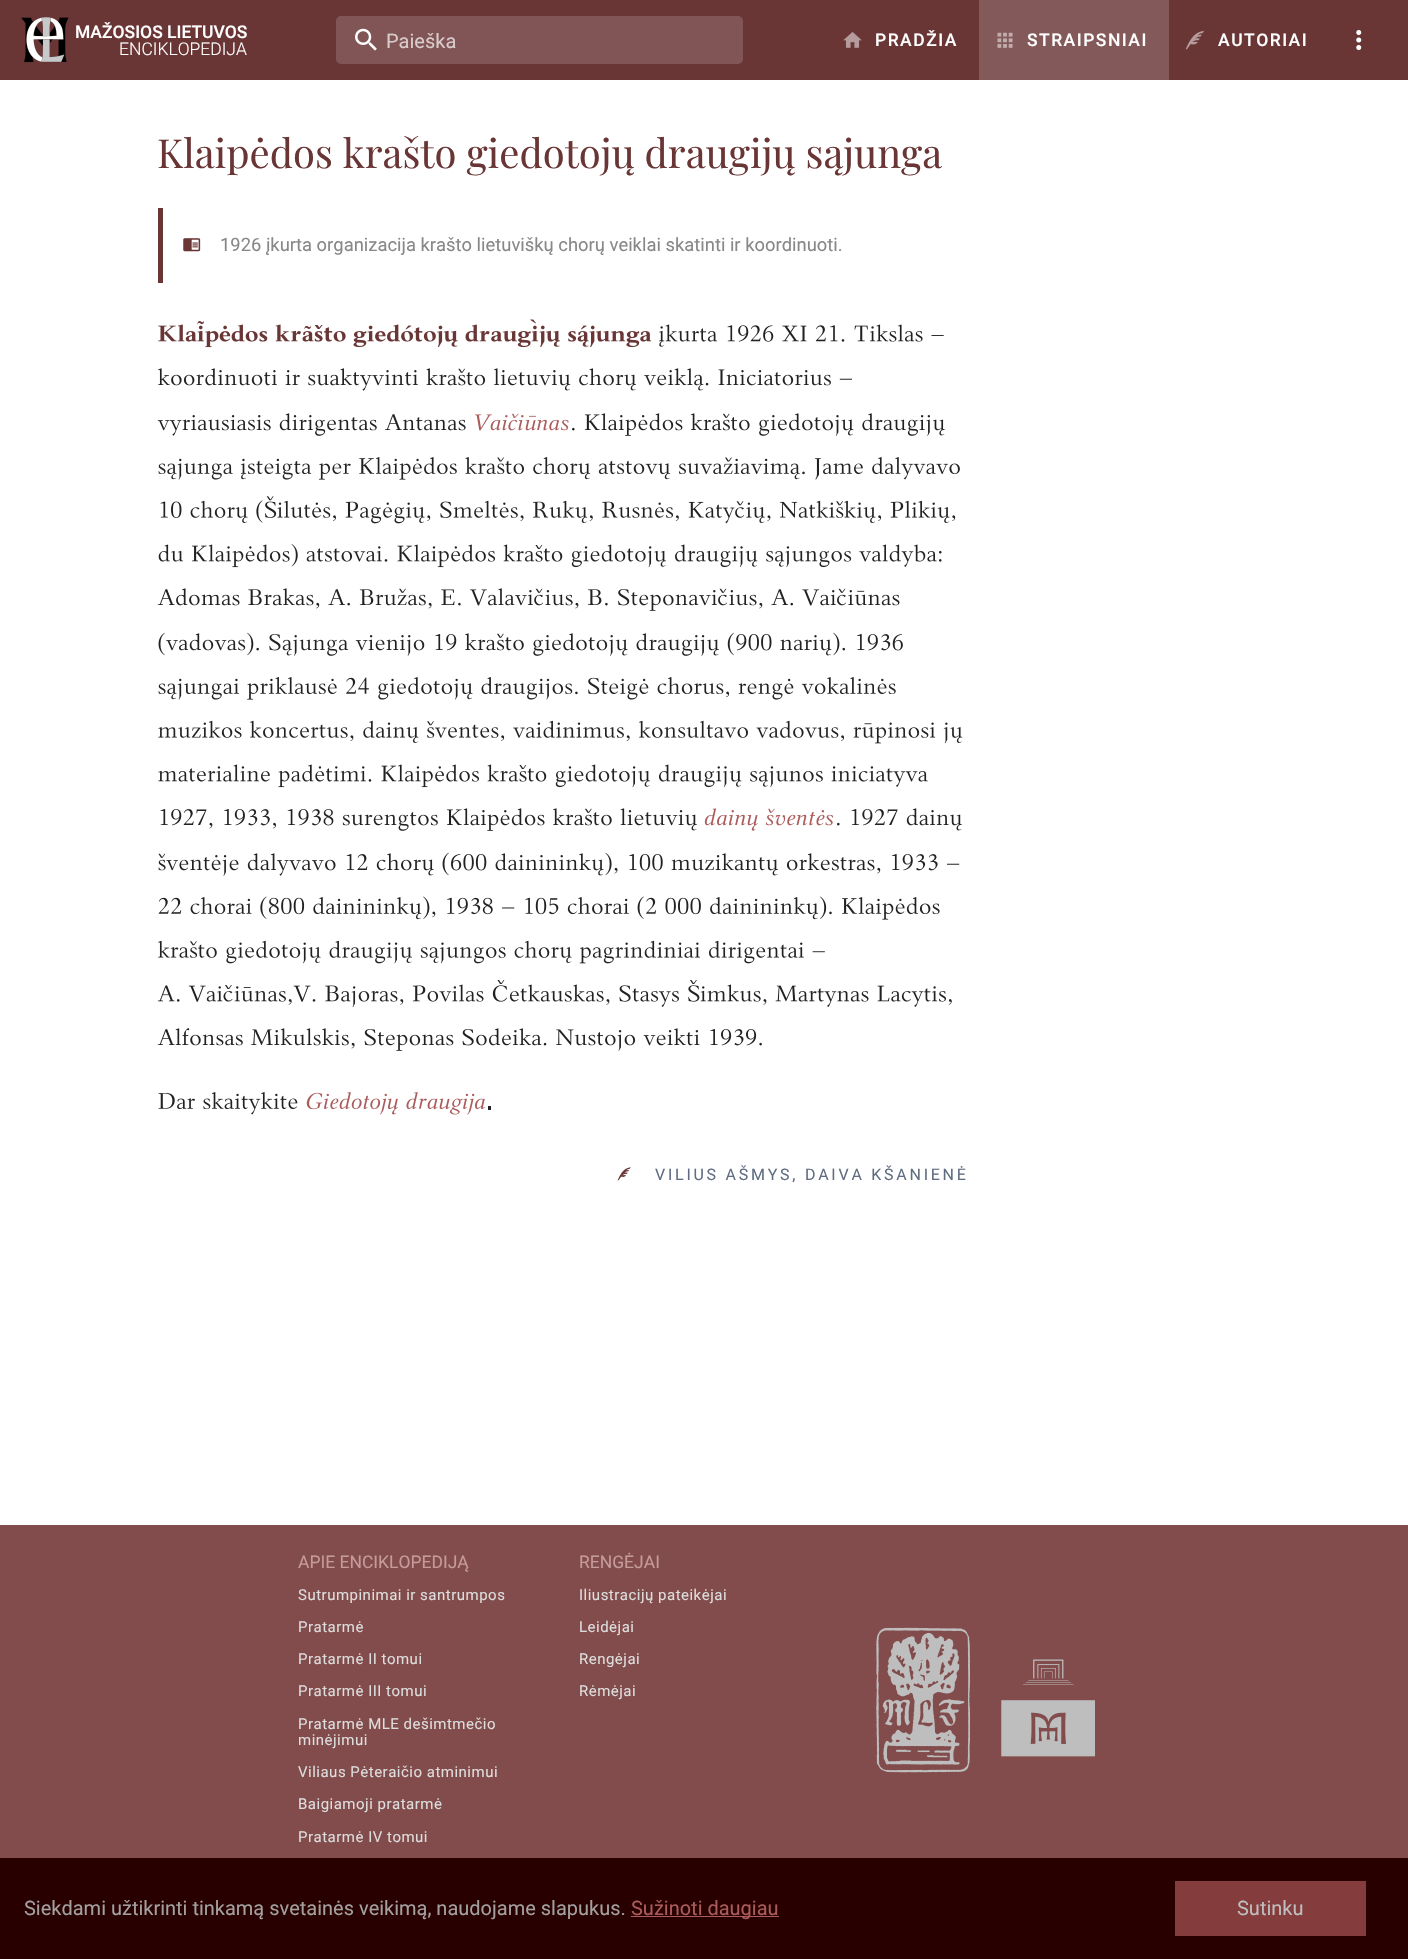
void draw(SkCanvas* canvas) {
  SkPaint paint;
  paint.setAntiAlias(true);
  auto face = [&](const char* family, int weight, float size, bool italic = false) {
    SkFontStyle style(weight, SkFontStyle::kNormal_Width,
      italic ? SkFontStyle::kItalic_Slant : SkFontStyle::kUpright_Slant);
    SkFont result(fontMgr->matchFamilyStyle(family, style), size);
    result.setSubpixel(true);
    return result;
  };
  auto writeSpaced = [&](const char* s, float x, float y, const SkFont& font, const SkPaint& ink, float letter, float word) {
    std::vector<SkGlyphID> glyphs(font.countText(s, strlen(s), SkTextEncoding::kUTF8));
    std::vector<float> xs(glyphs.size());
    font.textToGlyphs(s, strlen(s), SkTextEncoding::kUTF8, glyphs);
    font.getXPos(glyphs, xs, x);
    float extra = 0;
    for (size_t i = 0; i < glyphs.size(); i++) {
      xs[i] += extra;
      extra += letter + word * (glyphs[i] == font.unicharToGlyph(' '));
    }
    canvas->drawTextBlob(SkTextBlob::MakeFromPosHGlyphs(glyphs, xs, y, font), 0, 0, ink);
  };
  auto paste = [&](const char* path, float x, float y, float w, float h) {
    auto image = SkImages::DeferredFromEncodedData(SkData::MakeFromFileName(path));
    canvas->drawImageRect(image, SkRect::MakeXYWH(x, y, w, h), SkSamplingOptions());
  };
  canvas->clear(0xffffffff);
  paint.setColor(0xff693535);
  canvas->drawRect(SkRect::MakeXYWH(0, 0, 1408, 80), paint);
  paste("img/1.png", 21, 17, 48, 46);
  paint.setColor(0xff815555);
  canvas->drawRoundRect(SkRect::MakeXYWH(336, 16, 407, 48), 5, 5, paint);
  paste("img/2.png", 355, 28, 22, 23);
  paste("img/3.png", 843, 32, 19, 16);
  paint.setColor(0xff845959);
  canvas->drawRect(SkRect::MakeXYWH(979, 0, 190, 80), paint);
  paste("img/4.png", 997, 32, 16, 16);
  paste("img/5.png", 1185, 31, 19, 19);
  paste("img/6.png", 1356, 30, 6, 20);
  paint.setColor(0xff693535);
  canvas->drawRect(SkRect::MakeXYWH(158, 208, 5, 75), paint);
  paste("img/7.png", 183, 238, 18, 14);
  paste("img/8.png", 158, 319, 494, 29);
  paste("img/9.png", 659, 324, 285, 23);
  paste("img/10.png", 158, 368, 694, 23);
  paste("img/11.png", 157, 413, 309, 23);
  paste("img/12.png", 475, 413, 94, 18);
  paste("img/13.png", 572, 413, 373, 23);
  paste("img/14.png", 158, 457, 802, 23);
  paste("img/15.png", 160, 496, 796, 28);
  paste("img/16.png", 158, 544, 784, 24);
  paste("img/17.png", 157, 588, 743, 23);
  paste("img/18.png", 158, 632, 745, 24);
  paste("img/19.png", 158, 677, 738, 23);
  paste("img/20.png", 158, 720, 805, 24);
  paste("img/21.png", 158, 764, 770, 24);
  paste("img/22.png", 160, 808, 537, 23);
  paste("img/23.png", 704, 808, 129, 23);
  paste("img/24.png", 837, 808, 125, 23);
  paste("img/25.png", 158, 852, 802, 24);
  paste("img/26.png", 158, 896, 782, 24);
  paste("img/27.png", 158, 940, 667, 24);
  paste("img/28.png", 157, 980, 795, 27);
  paste("img/29.png", 157, 1028, 605, 23);
  paste("img/30.png", 158, 1092, 140, 23);
  paste("img/31.png", 306, 1092, 179, 23);
  paint.setColor(0xff212121);
  canvas->drawRect(SkRect::MakeXYWH(488, 1106, 3, 4), paint);
  paste("img/32.png", 617, 1167, 14, 14);
  paint.setColor(0xff834c4c);
  canvas->drawRect(SkRect::MakeXYWH(0, 1525, 1408, 333), paint);
  paste("img/33.png", 876, 1627, 94, 146);
  paste("img/34.png", 1001, 1659, 94, 98);
  {
    const struct { float x, y, w, h; SkColor color; } items[] = {
      {0, 1858, 1408, 101, 0xff280000},
      {631, 1916, 148, 1, 0xffab5b5b},
      {1175, 1881, 191, 55, 0xff853c3c},
    };
    for (auto [x, y, w, h, color] : items) {
      paint.setColor(color);
      canvas->drawRect(SkRect::MakeXYWH(x, y, w, h), paint);
    }
  }
  auto f0 = face("Roboto", 500, 17.5f);
  paint.setColor(0xffffffff);
  canvas->drawString("MAŽOSIOS LIETUVOS", 75, 38, f0, paint);
  auto f1 = face("Roboto", 300, 17.5f);
  canvas->drawString("ENCIKLOPEDIJA", 119, 55, f1, paint);
  auto f2 = face("Roboto", 400, 20);
  paint.setColor(0xffd9cccc);
  canvas->drawString("Paieška", 386, 48, f2, paint);
  paint.setColor(0xffffffff);
  {
    const struct { const char* s; float x, y; } items[] = {
      {"PRADŽIA", 875, 46},
      {"STRAIPSNIAI", 1027, 46},
      {"AUTORIAI", 1218, 46},
    };
    for (auto [s, x, y] : items) {
      writeSpaced(s, x, y, f0, paint, 1.5f, 0);
    }
  }
  auto f3 = face("Playfair Display", 400, 40);
  paint.setColor(0xff693535);
  canvas->drawString("Klaipėdos krašto giedotojų draugijų sąjunga", 157, 168, f3, paint);
  auto f4 = face("Roboto", 400, 18.4f);
  paint.setColor(0xff888888);
  canvas->drawString("1926 įkurta organizacija krašto lietuviškų chorų veiklai skatinti ir koordinuoti.", 220, 251, f4, paint);
  auto f5 = face("Roboto", 400, 16);
  paint.setColor(0xff5f6d80);
  writeSpaced("VILIUS AŠMYS, DAIVA KŠANIENĖ", 655, 1180, f5, paint, 2.75f, 0);
  auto f6 = face("Roboto", 400, 17.5f);
  paint.setColor(0xffc49a9a);
  canvas->drawString("APIE ENCIKLOPEDIJĄ", 298, 1568, f6, paint);
  auto f7 = face("Roboto", 400, 15);
  paint.setColor(0xffdddddd);
  {
    const struct { const char* s; float x, y; } items[] = {
      {"Sutrumpinimai ir santrumpos", 298, 1600},
      {"Pratarmė", 298, 1632},
      {"Pratarmė II tomui", 298, 1664},
      {"Pratarmė III tomui", 298, 1696},
      {"Pratarmė MLE dešimtmečio", 298, 1729},
      {"minėjimui", 298, 1745},
      {"Viliaus Pėteraičio atminimui", 298, 1777},
      {"Baigiamoji pratarmė", 298, 1809},
      {"Pratarmė IV tomui", 298, 1842},
    };
    for (auto [s, x, y] : items) {
      writeSpaced(s, x, y, f7, paint, 0.5f, 0);
    }
  }
  paint.setColor(0xffc49a9a);
  canvas->drawString("RENGĖJAI", 579, 1568, f6, paint);
  paint.setColor(0xffdddddd);
  {
    const struct { const char* s; float x, y; } items[] = {
      {"Iliustracijų pateikėjai", 579, 1600},
      {"Leidėjai", 579, 1632},
      {"Rengėjai", 579, 1664},
      {"Rėmėjai", 579, 1696},
    };
    for (auto [s, x, y] : items) {
      writeSpaced(s, x, y, f7, paint, 0.5f, 0);
    }
  }
  paint.setColor(0xffa3a0a0);
  canvas->drawString("Siekdami užtikrinti tinkamą svetainės veikimą, naudojame slapukus.", 24, 1915, f2, paint);
  paint.setColor(0xffab5b5b);
  canvas->drawString("Sužinoti daugiau", 631, 1915, f2, paint);
  paint.setColor(0xffbebebe);
  canvas->drawString("Sutinku", 1237, 1915, f2, paint);
}
